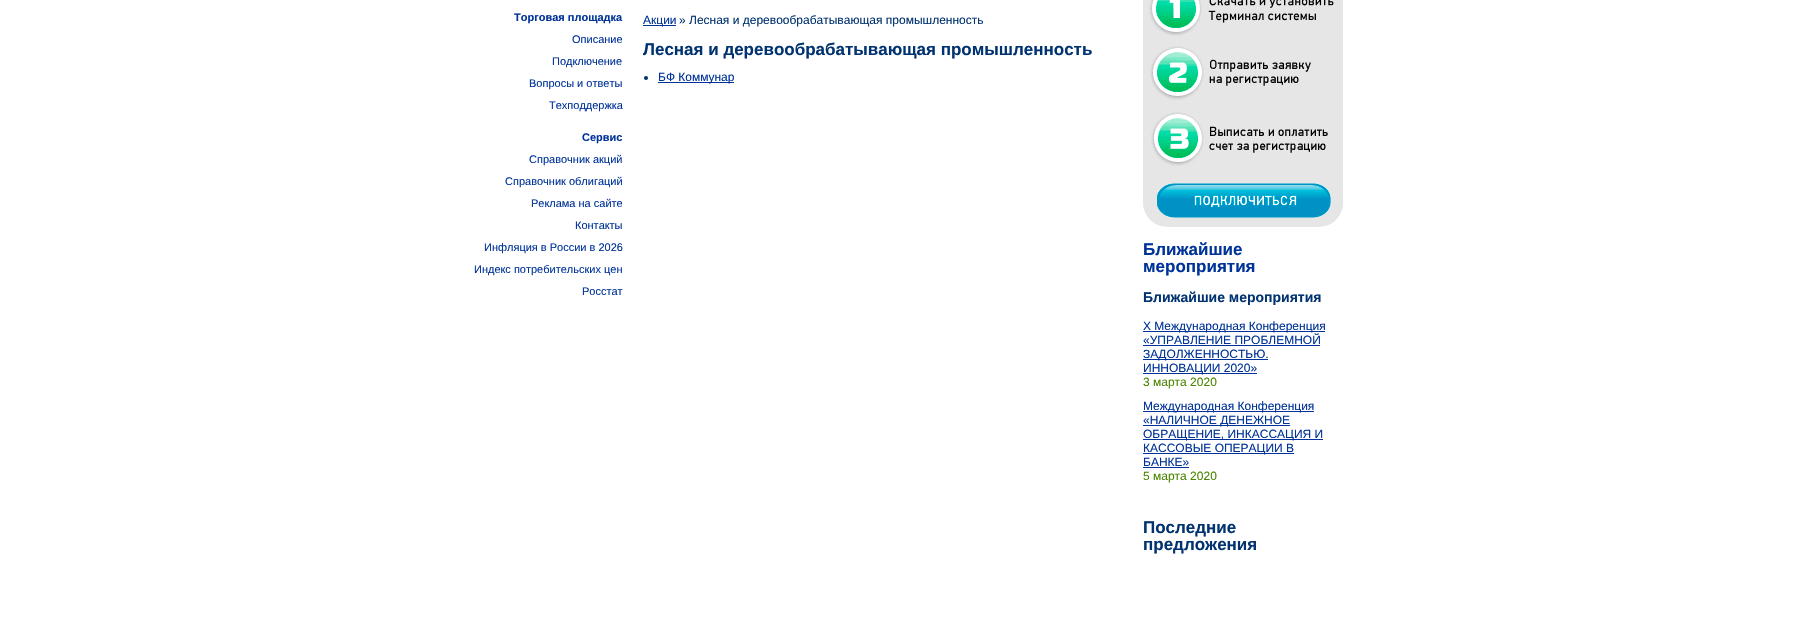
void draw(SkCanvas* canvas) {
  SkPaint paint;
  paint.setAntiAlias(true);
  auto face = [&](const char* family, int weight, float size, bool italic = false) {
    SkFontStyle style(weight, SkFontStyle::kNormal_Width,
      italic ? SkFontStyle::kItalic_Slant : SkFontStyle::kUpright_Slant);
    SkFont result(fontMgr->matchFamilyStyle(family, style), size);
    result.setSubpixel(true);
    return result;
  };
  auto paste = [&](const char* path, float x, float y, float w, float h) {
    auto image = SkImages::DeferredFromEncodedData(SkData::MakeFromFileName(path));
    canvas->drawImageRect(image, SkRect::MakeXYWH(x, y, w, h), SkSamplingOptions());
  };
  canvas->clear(0xffffffff);
  paint.setColor(0xff003399);
  canvas->drawRect(SkRect::MakeXYWH(643, 25, 33, 1), paint);
  paint.setColor(0xff013371);
  canvas->drawCircle(646, 78, 2, paint);
  paint.setColor(0xff003399);
  canvas->drawRect(SkRect::MakeXYWH(658, 82, 76, 1), paint);
  paste("img/1.png", 1143, 0, 200, 227);
  {
    const struct { float x, y, w, h; SkColor color; } items[] = {
      {1143, 331, 182, 1, 0xff003399},
      {1143, 345, 177, 1, 0xff003399},
      {1143, 359, 125, 1, 0xff003399},
      {1143, 373, 114, 1, 0xff003399},
      {1143, 411, 171, 1, 0xff003399},
      {1143, 425, 147, 1, 0xff003399},
      {1143, 439, 180, 1, 0xff003399},
      {1143, 453, 151, 1, 0xff003399},
      {1143, 467, 46, 1, 0xff003399},
    };
    for (auto [x, y, w, h, color] : items) {
      paint.setColor(color);
      canvas->drawRect(SkRect::MakeXYWH(x, y, w, h), paint);
    }
  }
  auto f0 = face("Liberation Sans", 700, 11);
  canvas->drawString("Торговая площадка", 514, 21, f0, paint);
  auto f1 = face("Liberation Sans", 400, 11);
  {
    const struct { const char* s; float x, y; } items[] = {
      {"Описание", 572, 43},
      {"Подключение", 552, 65},
      {"Вопросы и ответы", 529, 87},
      {"Техподдержка", 549, 109},
    };
    for (auto [s, x, y] : items) {
      canvas->drawString(s, x, y, f1, paint);
    }
  }
  canvas->drawString("Сервис", 582, 141, f0, paint);
  {
    const struct { const char* s; float x, y; } items[] = {
      {"Справочник акций", 529, 163},
      {"Справочник облигаций", 505, 185},
      {"Реклама на сайте", 531, 207},
      {"Контакты", 575, 229},
      {"Инфляция в России в 2026", 484, 251},
      {"Индекс потребительских цен", 474, 273},
      {"Росстат", 582, 295},
    };
    for (auto [s, x, y] : items) {
      canvas->drawString(s, x, y, f1, paint);
    }
  }
  auto f2 = face("Liberation Sans", 400, 12);
  canvas->drawString("Акции", 643, 24, f2, paint);
  paint.setColor(0xff013371);
  canvas->drawString("» Лесная и деревообрабатывающая промышленность", 679, 24, f2, paint);
  auto f3 = face("Liberation Sans", 700, 17);
  canvas->drawString("Лесная и деревообрабатывающая промышленность", 643, 55, f3, paint);
  paint.setColor(0xff003399);
  canvas->drawString("БФ Коммунар", 658, 81, f2, paint);
  canvas->drawString("Ближайшие", 1143, 255, f3, paint);
  canvas->drawString("мероприятия", 1143, 272, f3, paint);
  auto f4 = face("Liberation Sans", 700, 14);
  paint.setColor(0xff013371);
  canvas->drawString("Ближайшие мероприятия", 1143, 302, f4, paint);
  paint.setColor(0xff003399);
  {
    const struct { const char* s; float x, y; } items[] = {
      {"X Международная Конференция", 1143, 330},
      {"«УПРАВЛЕНИЕ ПРОБЛЕМНОЙ", 1143, 344},
      {"ЗАДОЛЖЕННОСТЬЮ.", 1143, 358},
      {"ИННОВАЦИИ 2020»", 1143, 372},
    };
    for (auto [s, x, y] : items) {
      canvas->drawString(s, x, y, f2, paint);
    }
  }
  paint.setColor(0xff4a8500);
  canvas->drawString("3 марта 2020", 1143, 386, f2, paint);
  paint.setColor(0xff003399);
  {
    const struct { const char* s; float x, y; } items[] = {
      {"Международная Конференция", 1143, 410},
      {"«НАЛИЧНОЕ ДЕНЕЖНОЕ", 1143, 424},
      {"ОБРАЩЕНИЕ, ИНКАССАЦИЯ И", 1143, 438},
      {"КАССОВЫЕ ОПЕРАЦИИ В", 1143, 452},
      {"БАНКЕ»", 1143, 466},
    };
    for (auto [s, x, y] : items) {
      canvas->drawString(s, x, y, f2, paint);
    }
  }
  paint.setColor(0xff4a8500);
  canvas->drawString("5 марта 2020", 1143, 480, f2, paint);
  paint.setColor(0xff013371);
  canvas->drawString("Последние", 1143, 533, f3, paint);
  canvas->drawString("предложения", 1143, 550, f3, paint);
}
